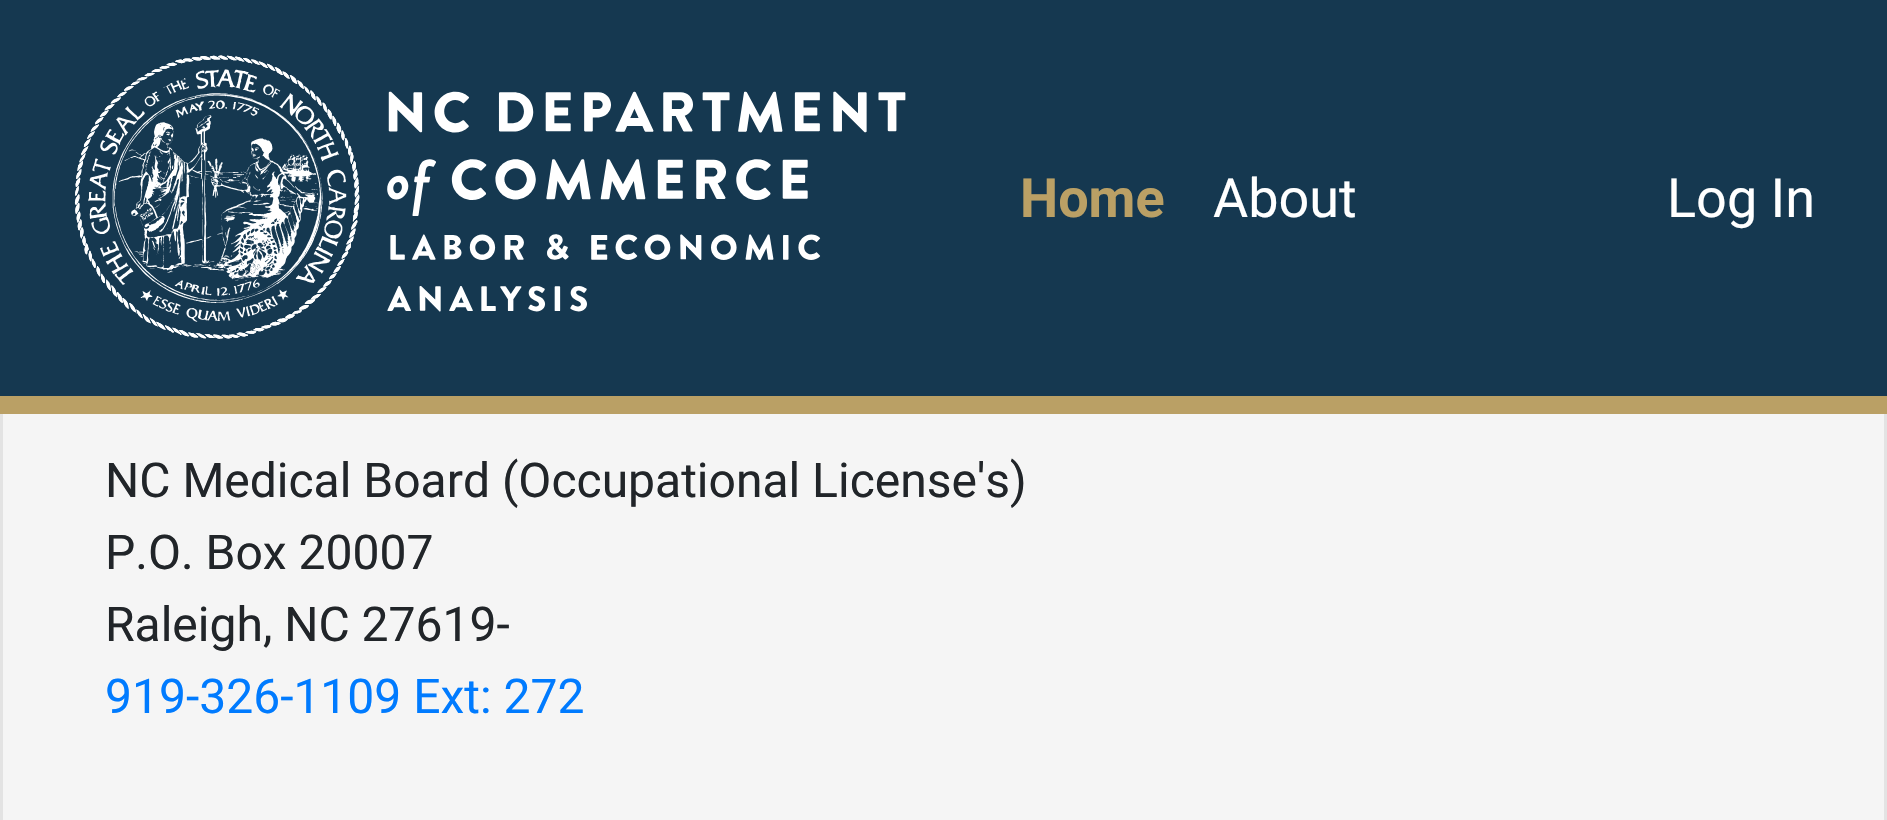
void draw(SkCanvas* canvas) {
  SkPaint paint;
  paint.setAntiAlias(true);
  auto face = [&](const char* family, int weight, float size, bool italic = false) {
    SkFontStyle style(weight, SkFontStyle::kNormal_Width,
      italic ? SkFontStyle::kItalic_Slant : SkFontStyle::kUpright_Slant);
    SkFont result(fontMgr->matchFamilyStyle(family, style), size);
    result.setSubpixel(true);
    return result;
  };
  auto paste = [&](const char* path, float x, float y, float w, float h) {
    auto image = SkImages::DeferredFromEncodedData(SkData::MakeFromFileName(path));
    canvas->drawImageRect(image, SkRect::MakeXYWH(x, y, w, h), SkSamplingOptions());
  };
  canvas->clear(0xfff5f5f5);
  paint.setStroke(true);
  paint.setStrokeWidth(3);
  paint.setColor(0xffe3e3e3);
  canvas->drawRect(SkRect::MakeXYWH(1.5f, 388.5f, 1884, 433), paint);
  paint.setStroke(false);
  paint.setColor(0xff153850);
  canvas->drawRect(SkRect::MakeXYWH(0, 0, 1887, 396), paint);
  paint.setColor(0xffbaa065);
  canvas->drawRect(SkRect::MakeXYWH(0, 396, 1887, 18), paint);
  paste("img/1.png", 74, 55, 832, 284);
  auto f0 = face("Roboto", 700, 54);
  canvas->drawString("Home", 1020, 217, f0, paint);
  auto f1 = face("Roboto", 400, 54);
  paint.setColor(0xffffffff);
  canvas->drawString("About", 1213, 217, f1, paint);
  canvas->drawString("Log In", 1667, 217, f1, paint);
  auto f2 = face("Roboto", 400, 48);
  paint.setColor(0xff212529);
  {
    const struct { const char* s; float x, y; } items[] = {
      {"NC Medical Board (Occupational License's)", 105, 497},
      {"P.O. Box 20007", 105, 569},
      {"Raleigh, NC 27619-", 105, 641},
    };
    for (auto [s, x, y] : items) {
      canvas->drawString(s, x, y, f2, paint);
    }
  }
  paint.setColor(0xff007bff);
  canvas->drawString("919-326-1109 Ext: 272", 105, 713, f2, paint);
}
